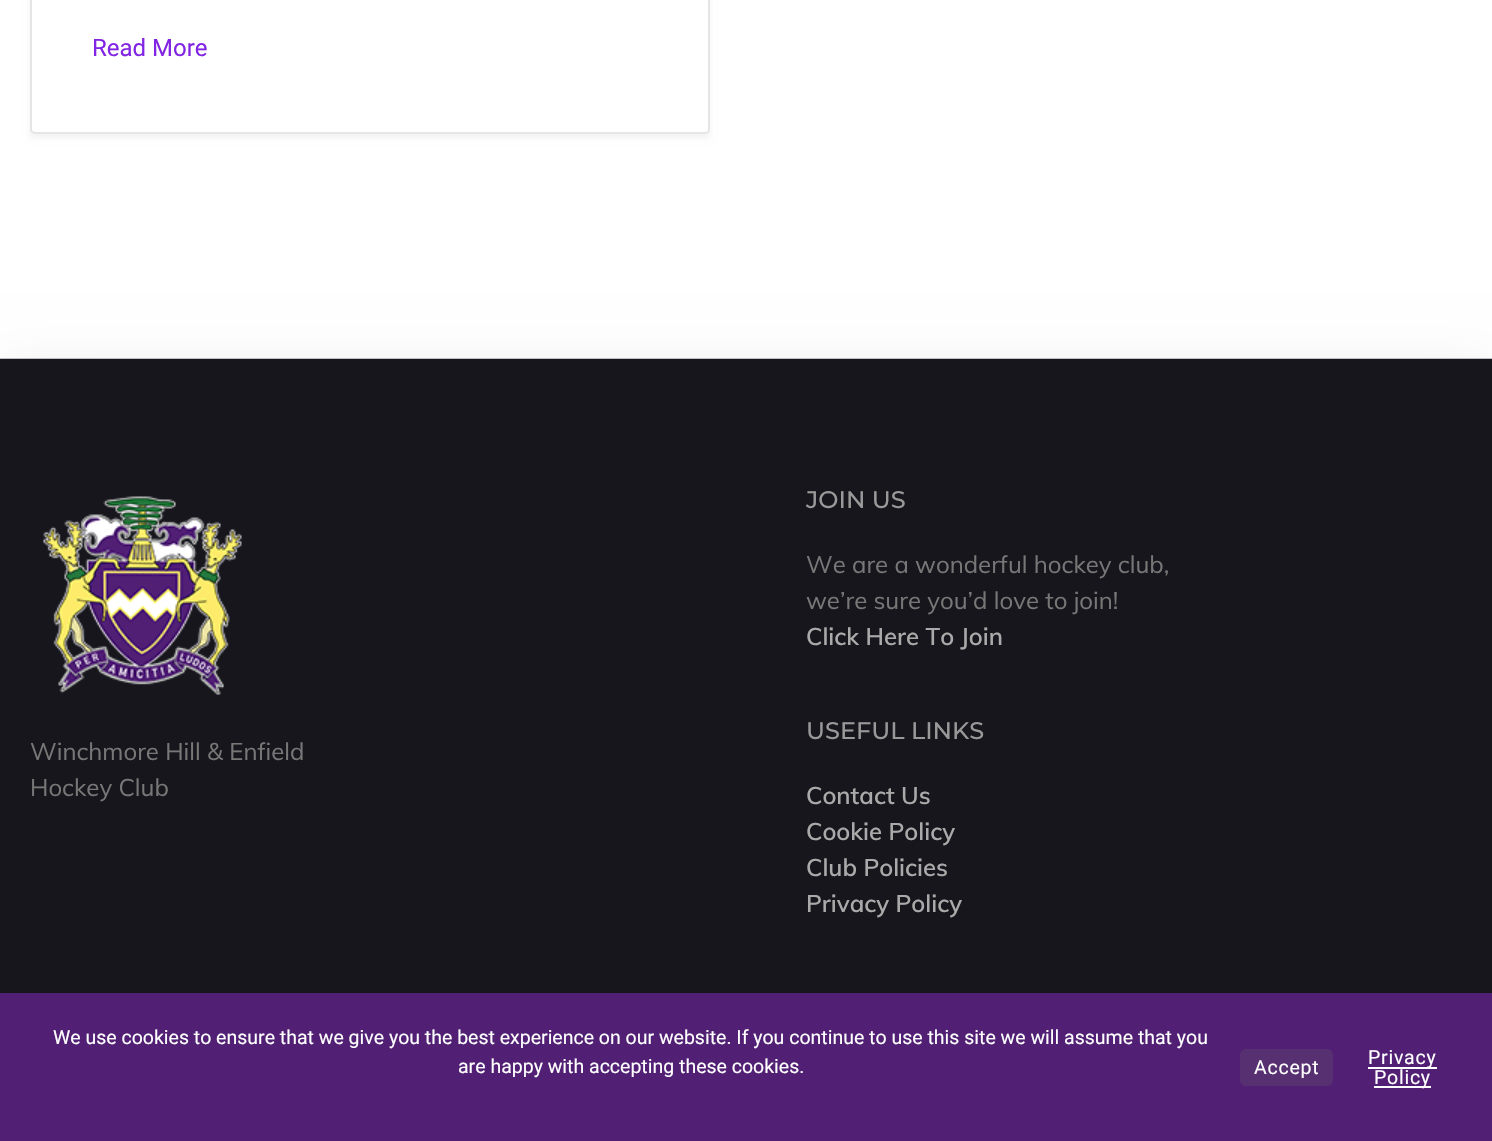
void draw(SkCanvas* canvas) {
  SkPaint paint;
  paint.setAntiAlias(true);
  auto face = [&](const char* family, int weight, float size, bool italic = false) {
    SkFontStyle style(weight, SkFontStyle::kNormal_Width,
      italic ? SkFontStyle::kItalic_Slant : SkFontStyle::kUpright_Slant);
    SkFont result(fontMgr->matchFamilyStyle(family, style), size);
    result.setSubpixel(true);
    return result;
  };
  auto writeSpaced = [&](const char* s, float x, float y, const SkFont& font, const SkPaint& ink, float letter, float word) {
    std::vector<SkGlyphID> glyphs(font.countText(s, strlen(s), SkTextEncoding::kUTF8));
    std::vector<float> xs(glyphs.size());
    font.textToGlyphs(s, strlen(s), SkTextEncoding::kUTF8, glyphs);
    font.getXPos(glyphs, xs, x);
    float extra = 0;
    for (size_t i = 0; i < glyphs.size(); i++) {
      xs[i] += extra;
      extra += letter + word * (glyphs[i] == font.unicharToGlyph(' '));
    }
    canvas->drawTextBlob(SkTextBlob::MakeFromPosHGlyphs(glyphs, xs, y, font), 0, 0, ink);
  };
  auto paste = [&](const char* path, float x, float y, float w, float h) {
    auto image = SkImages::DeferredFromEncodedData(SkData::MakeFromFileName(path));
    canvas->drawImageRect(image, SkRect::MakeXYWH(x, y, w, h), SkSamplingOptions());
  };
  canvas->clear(0xffffffff);
  paint.setColor(0x0d000000);
  paint.setMaskFilter(SkMaskFilter::MakeBlur(kNormal_SkBlurStyle, 3));
  canvas->drawRect(SkRect::MakeXYWH(30, -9, 680, 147), paint);
  paint.setMaskFilter(nullptr);
  paint.setColor(0xffffffff);
  canvas->drawRoundRect(SkRect::MakeXYWH(31, -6, 678, 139), 4, 4, paint);
  paint.setStroke(true);
  paint.setStrokeWidth(2);
  paint.setColor(0xffe5e5e5);
  canvas->drawRoundRect(SkRect::MakeXYWH(31, -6, 678, 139), 4, 4, paint);
  paste("img/1.png", 0, 358, 1492, 1);
  paint.setStroke(false);
  paint.setColor(0x0d000000);
  paint.setMaskFilter(SkMaskFilter::MakeBlur(kNormal_SkBlurStyle, 22.5f));
  canvas->drawRect(SkRect::MakeXYWH(0, 359, 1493, 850), paint);
  paint.setMaskFilter(nullptr);
  paint.setColor(0xff16161c);
  canvas->drawRect(SkRect::MakeXYWH(0, 359, 1492, 634), paint);
  paste("img/2.png", 43, 496, 199, 199);
  paint.setColor(0xff511f74);
  canvas->drawRect(SkRect::MakeXYWH(0, 993, 1492, 148), paint);
  paint.setColor(0xff573072);
  canvas->drawRoundRect(SkRect::MakeXYWH(1239, 1048, 95, 39), 7, 7, paint);
  paint.setStroke(true);
  paint.setColor(0xff511f74);
  canvas->drawRoundRect(SkRect::MakeXYWH(1239, 1048, 95, 39), 7, 7, paint);
  paint.setStroke(false);
  paint.setColor(0xffffffff);
  canvas->drawRect(SkRect::MakeXYWH(1368, 1067, 69, 2), paint);
  canvas->drawRect(SkRect::MakeXYWH(1374, 1086, 57, 2), paint);
  auto f0 = face("Roboto", 400, 24);
  paint.setColor(0xff8224e3);
  canvas->drawString("Read More", 92, 56, f0, paint);
  auto f1 = face("Montserrat", 500, 24);
  paint.setColor(0xff999999);
  canvas->drawString("JOIN US", 806, 508, f1, paint);
  auto f2 = face("Muli", 400, 24);
  paint.setColor(0xff777777);
  canvas->drawString("We are a wonderful hockey club,", 806, 573, f2, paint);
  canvas->drawString("we’re sure you’d love to join!", 806, 609, f2, paint);
  auto f3 = face("Muli", 600, 24);
  paint.setColor(0xffaaaaaa);
  canvas->drawString("Click Here To Join", 806, 645, f3, paint);
  paint.setColor(0xff777777);
  canvas->drawString("Winchmore Hill & Enfield", 30, 760, f2, paint);
  canvas->drawString("Hockey Club", 30, 796, f2, paint);
  paint.setColor(0xff999999);
  canvas->drawString("USEFUL LINKS", 806, 739, f1, paint);
  paint.setColor(0xffaaaaaa);
  {
    const struct { const char* s; float x, y; } items[] = {
      {"Contact Us", 806, 804},
      {"Cookie Policy", 806, 840},
      {"Club Policies", 806, 876},
      {"Privacy Policy", 806, 912},
    };
    for (auto [s, x, y] : items) {
      canvas->drawString(s, x, y, f3, paint);
    }
  }
  auto f4 = face("Roboto", 400, 19.5f);
  paint.setColor(0xffffffff);
  canvas->drawString("We use cookies to ensure that we give you the best experience on our website. If you continue to use this site we will assume that you", 53, 1044, f4, paint);
  canvas->drawString("are happy with accepting these cookies.", 458, 1073, f4, paint);
  {
    const struct { const char* s; float x, y; } items[] = {
      {"Accept", 1254, 1074},
      {"Privacy", 1368, 1064},
      {"Policy", 1374, 1084},
    };
    for (auto [s, x, y] : items) {
      writeSpaced(s, x, y, f4, paint, 0.75f, 0);
    }
  }
}
